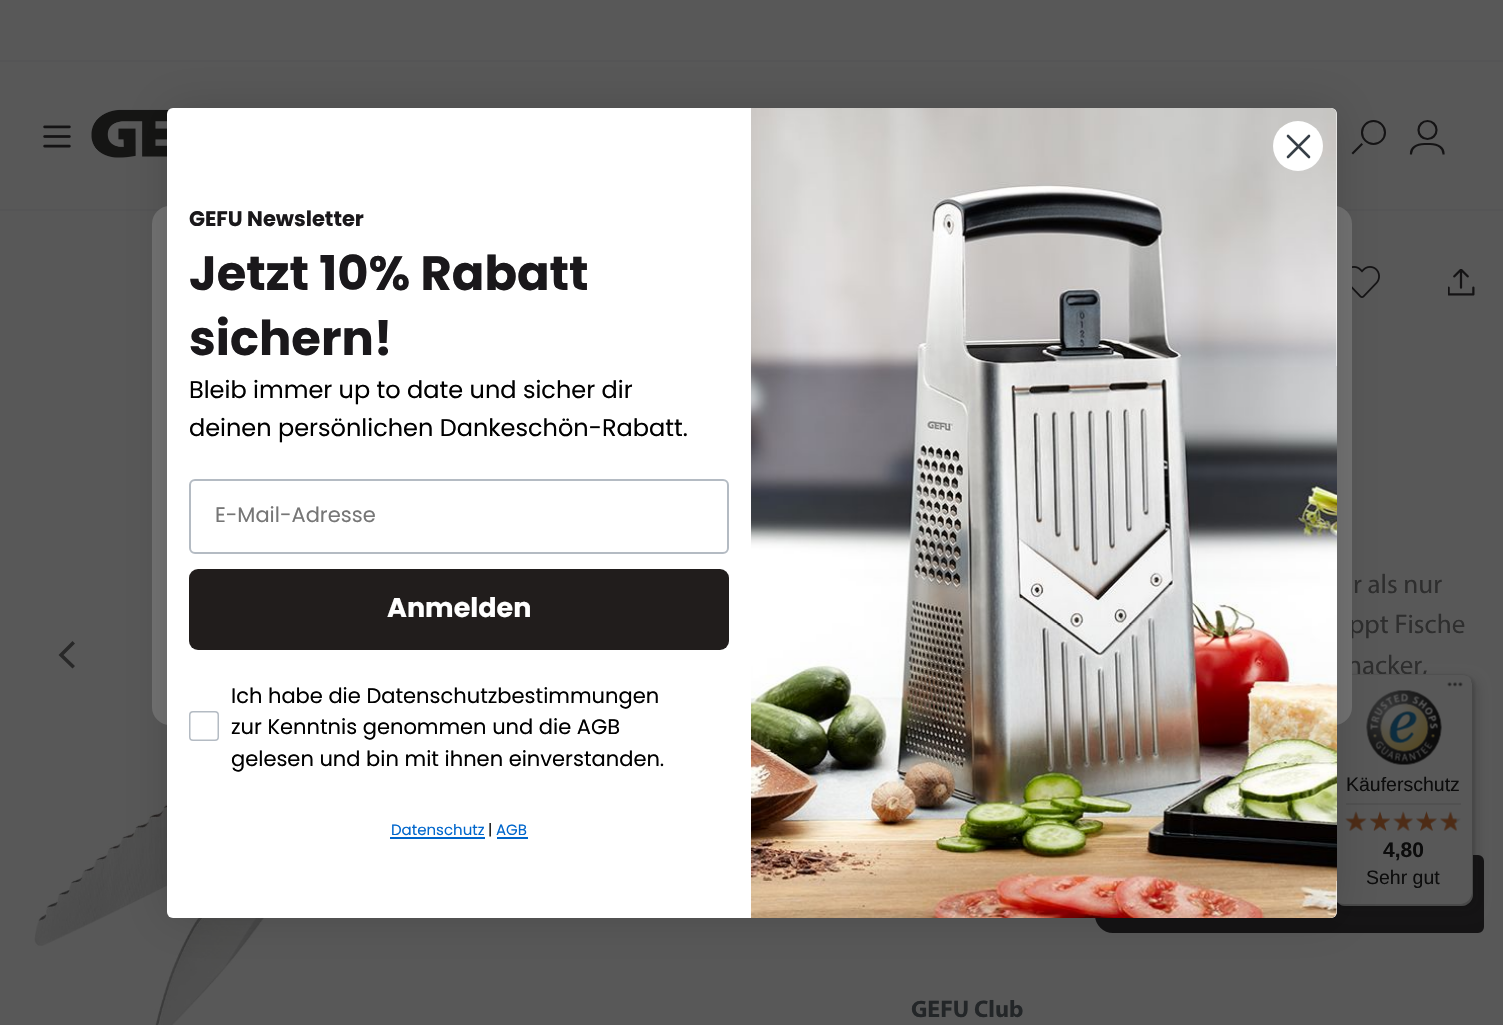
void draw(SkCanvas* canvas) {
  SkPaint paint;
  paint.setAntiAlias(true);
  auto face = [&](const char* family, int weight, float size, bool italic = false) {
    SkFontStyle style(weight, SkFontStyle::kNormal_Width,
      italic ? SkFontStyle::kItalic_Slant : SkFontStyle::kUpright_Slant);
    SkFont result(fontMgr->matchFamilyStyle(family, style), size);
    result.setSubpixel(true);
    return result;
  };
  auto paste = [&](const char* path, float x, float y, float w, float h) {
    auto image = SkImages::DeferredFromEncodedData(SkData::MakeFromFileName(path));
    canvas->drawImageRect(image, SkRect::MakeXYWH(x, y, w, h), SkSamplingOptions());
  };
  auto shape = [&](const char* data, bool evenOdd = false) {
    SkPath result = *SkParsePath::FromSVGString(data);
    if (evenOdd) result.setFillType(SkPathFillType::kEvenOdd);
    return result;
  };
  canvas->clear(0xff585858);
  paint.setColor(0xff555556);
  canvas->drawRect(SkRect::MakeXYWH(0, 209, 1503, 2), paint);
  canvas->drawRect(SkRect::MakeXYWH(0, 60, 1503, 2), paint);
  paste("img/1.png", 43, 125, 28, 23);
  paste("img/2.png", 91, 109, 79, 49);
  paint.setStroke(true);
  paint.setStrokeWidth(2.1f);
  paint.setColor(0xff141314);
  canvas->drawCircle(1373.5f, 132.5f, 11.5f, paint);
  paint.setStrokeCap(SkPaint::kSquare_Cap);
  canvas->drawPath(shape("M1353 153L1361.5 144.5"), paint);
  paint.setStrokeWidth(2.2f);
  paint.setStrokeCap(SkPaint::kButt_Cap);
  canvas->drawCircle(1427.5f, 130, 9, paint);
  paint.setStrokeCap(SkPaint::kSquare_Cap);
  canvas->drawPath(shape("M1411 153.5C1411 148.5 1415.5 144 1424.5 144H1430C1439 144 1443.5 148.5 1443.5 153.5"), paint);
  paste("img/4.png", 34, 272, 760, 753);
  paint.setStroke(false);
  paint.setColor(0xff282828);
  canvas->drawPath(shape("M58.5 655L72.5 668.5L75 666L63.5 655L75 643.5L72.5 641Z"), paint);
  paste("img/5.png", 1352, 266, 28, 32);
  paste("img/6.png", 1448, 269, 27, 27);
  paint.setColor(0xff141314);
  canvas->drawPath(shape("M1101 856.5H1478C1480.5 856.5 1482.5 858.5 1482.5 861V927C1482.5 929.5 1480.5 931.5 1478 931.5H1113C1104 931.5 1096.5 924 1096.5 915V861C1096.5 858.5 1098.5 856.5 1101 856.5Z"), paint);
  paint.setStroke(true);
  paint.setStrokeWidth(3);
  paint.setStrokeCap(SkPaint::kButt_Cap);
  canvas->drawPath(shape("M1101 856.5H1478C1480.5 856.5 1482.5 858.5 1482.5 861V927C1482.5 929.5 1480.5 931.5 1478 931.5H1113C1104 931.5 1096.5 924 1096.5 915V861C1096.5 858.5 1098.5 856.5 1101 856.5Z"), paint);
  paint.setStroke(false);
  paint.setColor(0x260c0c0c);
  paint.setMaskFilter(SkMaskFilter::MakeBlur(kNormal_SkBlurStyle, 6));
  canvas->drawRoundRect(SkRect::MakeXYWH(1338, 678, 140, 233), 12, 12, paint);
  paint.setMaskFilter(nullptr);
  paint.setMaskFilter(SkMaskFilter::MakeBlur(kNormal_SkBlurStyle, 1.5f));
  canvas->drawRoundRect(SkRect::MakeXYWH(1335, 675, 140, 233), 12, 12, paint);
  paint.setMaskFilter(nullptr);
  auto f0 = face("Myriad", 400, 27);
  paint.setColor(0xff2e2e2e);
  {
    const struct { const char* s; float x, y; } items[] = {
      {"r als nur", 1353, 593},
      {"ppt Fische", 1349, 633},
      {"nacker,", 1347, 674},
    };
    for (auto [s, x, y] : items) {
      canvas->drawString(s, x, y, f0, paint);
    }
  }
  auto f1 = face("Myriad", 700, 24);
  paint.setColor(0xff232628);
  canvas->drawString("GEFU Club", 911, 1017, f1, paint);
  paint.setColor(0xff585858);
  canvas->drawRoundRect(SkRect::MakeXYWH(1334, 674, 139, 232), 12, 12, paint);
  paint.setColor(0x1a0c0c0c);
  canvas->drawPath(shape("M1347 675H1462C1465 675 1467 676 1469 677C1467 675 1464 674 1461 674H1346C1339 674 1334 679 1334 686V894C1334 896 1335 899 1336 901L1335 896V687C1335 680 1340 675 1347 675Z"), paint);
  paint.setColor(0x330c0c0c);
  canvas->drawPath(shape("M1337 902C1339 904 1342 906 1346 906H1461C1468 906 1473 901 1473 894V686C1473 684 1472 681 1471 680L1472 684V892C1472 899 1466 904 1460 904H1344C1341 904 1339 903 1337 902Z"), paint);
  paint.setColor(0x331b1b1b);
  canvas->drawPath(shape("M1338 903C1340 905 1343 906 1346 906H1461C1468 906 1473 901 1473 894V686C1473 683 1472 680 1470 678C1471 680 1472 682 1472 685V893C1472 900 1467 905 1460 905H1345C1342 905 1340 904 1338 903Z"), paint);
  paint.setColor(0x4d585858);
  canvas->drawPath(shape("M1338 903C1340 905 1343 906 1346 906H1461C1468 906 1473 901 1473 894V686C1473 683 1472 680 1470 678C1471 680 1472 682 1472 685V893C1472 900 1467 905 1460 905H1345C1342 905 1340 904 1338 903Z"), paint);
  paint.setColor(0xff727272);
  canvas->drawRoundRect(SkRect::MakeXYWH(152, 206, 1200, 519), 18, 18, paint);
  paste("img/7.png", 1447, 682, 16, 5);
  paste("img/8.png", 1366, 690, 76, 75);
  auto f2 = face("Liberation Sans", 400, 19.5f);
  paint.setColor(0xff0c0c0c);
  canvas->drawString("Käuferschutz", 1346, 791, f2, paint);
  paint.setColor(0xff515151);
  canvas->drawRect(SkRect::MakeXYWH(1346, 803, 115, 2), paint);
  paste("img/14.png", 1346, 812, 20, 19);
  paste("img/9.png", 1345, 811, 22, 20);
  paste("img/15.png", 1370, 811, 20, 20);
  paste("img/10.png", 1370, 811, 20, 20);
  paste("img/16.png", 1393, 811, 20, 20);
  paste("img/11.png", 1393, 811, 20, 20);
  paint.setColor(0x26000000);
  paint.setMaskFilter(SkMaskFilter::MakeBlur(kNormal_SkBlurStyle, 22.5f));
  canvas->drawRoundRect(SkRect::MakeXYWH(167, 108, 1170, 810), 6, 6, paint);
  paint.setMaskFilter(nullptr);
  paint.setColor(0xffffffff);
  canvas->drawRoundRect(SkRect::MakeXYWH(167, 108, 1170, 810), 6, 6, paint);
  paste("img/3.png", 751, 108, 586, 810);
  canvas->drawCircle(1298, 146, 25, paint);
  paint.setStroke(true);
  paint.setStrokeWidth(2.6f);
  paint.setStrokeCap(SkPaint::kRound_Cap);
  paint.setStrokeJoin(SkPaint::kRound_Join);
  paint.setColor(0xff373f47);
  canvas->drawPath(shape("M1288 136L1309 157M1288 157L1309 136Z"), paint);
  auto f3 = face("Poppins", 400, 15);
  paint.setStroke(false);
  paint.setColor(0xff0066cc);
  canvas->drawString("AGB", 496, 835, f3, paint);
  canvas->drawRect(SkRect::MakeXYWH(497, 837, 31, 2), paint);
  paint.setColor(0xff131313);
  canvas->drawString("|", 488, 835, f3, paint);
  paint.setColor(0xff0066cc);
  canvas->drawString("Datenschutz", 391, 835, f3, paint);
  canvas->drawRect(SkRect::MakeXYWH(390, 837, 95, 2), paint);
  auto f4 = face("Poppins", 400, 21);
  paint.setColor(0xff000000);
  {
    const struct { const char* s; float x, y; } items[] = {
      {"gelesen und bin mit ihnen einverstanden.", 231, 766},
      {"zur Kenntnis genommen und die AGB", 231, 734},
      {"Ich habe die Datenschutzbestimmungen", 231, 703},
    };
    for (auto [s, x, y] : items) {
      canvas->drawString(s, x, y, f4, paint);
    }
  }
  paint.setStroke(true);
  paint.setStrokeWidth(1.5f);
  paint.setStrokeCap(SkPaint::kButt_Cap);
  paint.setStrokeJoin(SkPaint::kMiter_Join);
  paint.setColor(0xffb4bbc3);
  canvas->drawRoundRect(SkRect::MakeXYWH(189.75f, 711.75f, 28.5f, 28.5f), 3.25f, 3.25f, paint);
  paint.setStroke(false);
  paint.setColor(0xff211d1c);
  canvas->drawRoundRect(SkRect::MakeXYWH(189, 569, 540, 81), 9, 9, paint);
  auto f5 = face("Poppins", 700, 27);
  paint.setColor(0xffffffff);
  canvas->drawString("Anmelden", 387, 617, f5, paint);
  paint.setStroke(true);
  paint.setStrokeWidth(2);
  paint.setColor(0xffb4bbc3);
  canvas->drawRoundRect(SkRect::MakeXYWH(190, 480, 538, 73), 5, 5, paint);
  paint.setStroke(false);
  paint.setColor(0xff767676);
  canvas->drawString("E-Mail-Adresse", 215, 522, f4, paint);
  auto f6 = face("Poppins", 400, 24);
  paint.setColor(0xff000000);
  canvas->drawString("deinen persönlichen Dankeschön-Rabatt.", 189, 436, f6, paint);
  canvas->drawString("Bleib immer up to date und sicher dir", 189, 398, f6, paint);
  auto f7 = face("Poppins", 700, 48);
  paint.setColor(0xff1a181b);
  canvas->drawString("sichern!", 189, 355, f7, paint);
  canvas->drawString("Jetzt 10% Rabatt", 189, 290, f7, paint);
  auto f8 = face("Poppins", 700, 21);
  canvas->drawString("GEFU Newsletter", 189, 226, f8, paint);
  paste("img/17.png", 1416, 811, 21, 20);
  paste("img/12.png", 1416, 811, 21, 20);
  paste("img/18.png", 1440, 812, 21, 19);
  paste("img/13.png", 1440, 811, 17, 20);
  auto f9 = face("Liberation Sans", 700, 21);
  paint.setColor(0xff0c0c0c);
  canvas->drawString("4,80", 1383, 857, f9, paint);
  canvas->drawString("Sehr gut", 1366, 884, f2, paint);
}
